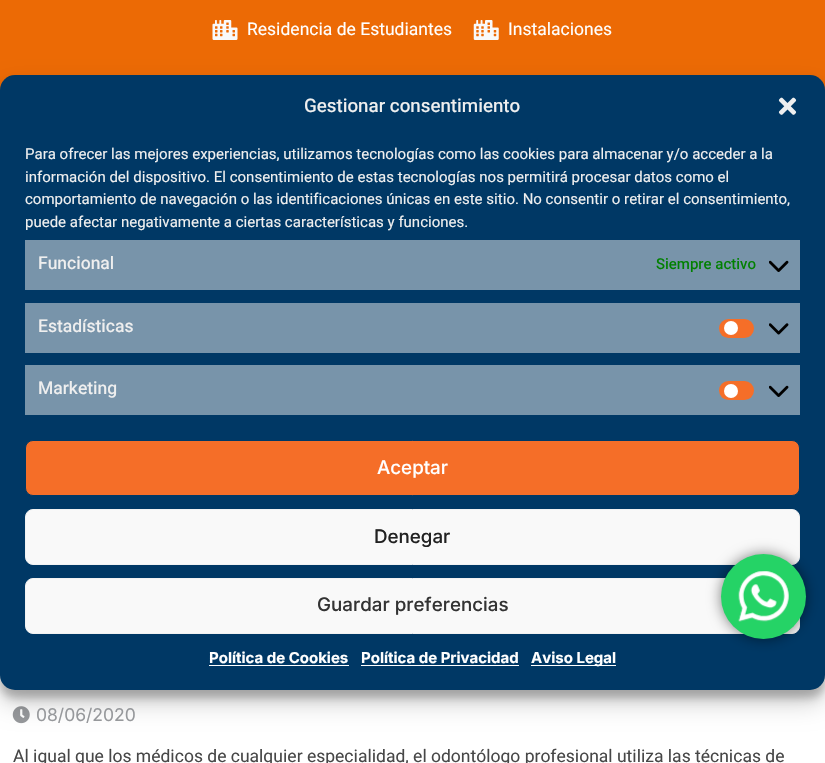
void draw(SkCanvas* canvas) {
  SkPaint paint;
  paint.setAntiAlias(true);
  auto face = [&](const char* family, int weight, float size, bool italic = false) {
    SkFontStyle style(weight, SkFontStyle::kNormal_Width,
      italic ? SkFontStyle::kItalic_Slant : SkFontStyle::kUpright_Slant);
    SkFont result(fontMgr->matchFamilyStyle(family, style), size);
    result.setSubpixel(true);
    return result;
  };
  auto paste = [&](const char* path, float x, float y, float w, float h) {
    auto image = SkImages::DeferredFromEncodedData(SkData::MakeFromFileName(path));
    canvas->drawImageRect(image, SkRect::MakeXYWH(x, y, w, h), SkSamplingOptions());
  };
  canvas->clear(0xffffffff);
  paint.setColor(0xffec6a05);
  canvas->drawRect(SkRect::MakeXYWH(0, 0, 825, 90), paint);
  paste("img/1.png", 212, 20, 26, 20);
  paste("img/2.png", 473, 20, 26, 20);
  paste("img/7.png", 12, 706, 18, 18);
  paint.setColor(0x3b000000);
  paint.setMaskFilter(SkMaskFilter::MakeBlur(kNormal_SkBlurStyle, 4));
  canvas->drawRoundRect(SkRect::MakeXYWH(0, 83, 825, 615), 15, 15, paint);
  paint.setMaskFilter(nullptr);
  paint.setColor(0x30000000);
  paint.setMaskFilter(SkMaskFilter::MakeBlur(kNormal_SkBlurStyle, 12.5f));
  canvas->drawRoundRect(SkRect::MakeXYWH(0, 88, 825, 615), 15, 15, paint);
  paint.setMaskFilter(nullptr);
  paint.setColor(0xff003865);
  canvas->drawRoundRect(SkRect::MakeXYWH(0, 75, 825, 615), 15, 15, paint);
  paste("img/3.png", 778, 97, 19, 18);
  paint.setColor(0xff7894aa);
  canvas->drawRect(SkRect::MakeXYWH(25, 240, 775, 50), paint);
  paste("img/4.png", 769, 260, 20, 12);
  canvas->drawRect(SkRect::MakeXYWH(25, 303, 775, 50), paint);
  paint.setColor(0xfff56e28);
  canvas->drawRoundRect(SkRect::MakeXYWH(719, 319, 35, 19), 9.5f, 9.5f, paint);
  paint.setColor(0xffffffff);
  canvas->drawCircle(731, 328, 7, paint);
  paste("img/5.png", 769, 323, 20, 12);
  paint.setColor(0xff7894aa);
  canvas->drawRect(SkRect::MakeXYWH(25, 365, 775, 50), paint);
  paint.setColor(0xfff56e28);
  canvas->drawRoundRect(SkRect::MakeXYWH(719, 381, 35, 19), 9.5f, 9.5f, paint);
  paint.setColor(0xffffffff);
  canvas->drawCircle(731, 391, 7, paint);
  paste("img/4.png", 769, 385, 20, 12);
  paint.setColor(0xfff56e28);
  canvas->drawRoundRect(SkRect::MakeXYWH(25.5f, 440.5f, 774, 55), 7.5f, 7.5f, paint);
  paint.setStroke(true);
  paint.setStrokeWidth(1);
  paint.setColor(0xff003865);
  canvas->drawRoundRect(SkRect::MakeXYWH(25.5f, 440.5f, 774, 55), 7.5f, 7.5f, paint);
  paint.setStroke(false);
  paint.setColor(0xfff9f9f9);
  canvas->drawRoundRect(SkRect::MakeXYWH(25.5f, 509.5f, 774, 55), 7.5f, 7.5f, paint);
  paint.setStroke(true);
  paint.setColor(0xfff2f2f2);
  canvas->drawRoundRect(SkRect::MakeXYWH(25.5f, 509.5f, 774, 55), 7.5f, 7.5f, paint);
  paint.setStroke(false);
  paint.setColor(0xfff9f9f9);
  canvas->drawRoundRect(SkRect::MakeXYWH(25.5f, 578.5f, 774, 55), 7.5f, 7.5f, paint);
  paint.setStroke(true);
  paint.setColor(0xfff2f2f2);
  canvas->drawRoundRect(SkRect::MakeXYWH(25.5f, 578.5f, 774, 55), 7.5f, 7.5f, paint);
  paint.setStroke(false);
  {
    const struct { float x, y, w, h; SkColor color; } items[] = {
      {209, 665, 140, 1, 0xffffffff},
      {361, 665, 158, 1, 0xffffffff},
      {531, 665, 85, 1, 0xffffffff},
    };
    for (auto [x, y, w, h, color] : items) {
      paint.setColor(color);
      canvas->drawRect(SkRect::MakeXYWH(x, y, w, h), paint);
    }
  }
  paint.setColor(0x80000000);
  paint.setMaskFilter(SkMaskFilter::MakeBlur(kNormal_SkBlurStyle, 7));
  canvas->drawRoundRect(SkRect::MakeXYWH(721, 554, 85, 85), 42.5f, 42.5f, paint);
  paint.setMaskFilter(nullptr);
  paint.setColor(0xff25d366);
  canvas->drawCircle(763.5f, 596.5f, 42.5f, paint);
  paste("img/6.png", 738, 571, 51, 51);
  auto f0 = face("Heebo", 400, 17.5f);
  paint.setColor(0xffffffff);
  canvas->drawString("Residencia de Estudiantes", 247, 35, f0, paint);
  canvas->drawString("Instalaciones", 508, 35, f0, paint);
  auto f1 = face("Heebo", 500, 18.75f);
  paint.setColor(0xffefefef);
  canvas->drawString("Gestionar consentimiento", 304, 112, f1, paint);
  auto f2 = face("Heebo", 400, 15);
  {
    const struct { const char* s; float x, y; } items[] = {
      {"Para ofrecer las mejores experiencias, utilizamos tecnologías como las cookies para almacenar y/o acceder a la", 25, 159},
      {"información del dispositivo. El consentimiento de estas tecnologías nos permitirá procesar datos como el", 25, 182},
      {"comportamiento de navegación o las identificaciones únicas en este sitio. No consentir o retirar el consentimiento,", 25, 204},
      {"puede afectar negativamente a ciertas características y funciones.", 25, 227},
    };
    for (auto [s, x, y] : items) {
      canvas->drawString(s, x, y, f2, paint);
    }
  }
  auto f3 = face("Heebo", 500, 17.5f);
  canvas->drawString("Funcional", 38, 269, f3, paint);
  auto f4 = face("Heebo", 500, 15);
  paint.setColor(0xff008000);
  canvas->drawString("Siempre activo", 656, 269, f4, paint);
  paint.setColor(0xffefefef);
  canvas->drawString("Estadísticas", 38, 332, f3, paint);
  canvas->drawString("Marketing", 38, 394, f3, paint);
  auto f5 = face("Inter", 500, 18.75f);
  paint.setColor(0xffffffff);
  canvas->drawString("Aceptar", 377, 474, f5, paint);
  paint.setColor(0xff222222);
  canvas->drawString("Denegar", 374, 543, f5, paint);
  paint.setColor(0xff333333);
  canvas->drawString("Guardar preferencias", 317, 611, f5, paint);
  auto f6 = face("Inter", 700, 15);
  paint.setColor(0xffffffff);
  {
    const struct { const char* s; float x, y; } items[] = {
      {"Política de Cookies", 209, 663},
      {"Política de Privacidad", 361, 663},
      {"Aviso Legal", 531, 663},
    };
    for (auto [s, x, y] : items) {
      canvas->drawString(s, x, y, f6, paint);
    }
  }
  auto f7 = face("Inter", 400, 17.5f);
  paint.setColor(0xff96989b);
  canvas->drawString("08/06/2020", 36, 721, f7, paint);
  paint.setColor(0xff474747);
  canvas->drawString("Al igual que los médicos de cualquier especialidad, el odontólogo profesional utiliza las técnicas de", 13, 762, f0, paint);
}
